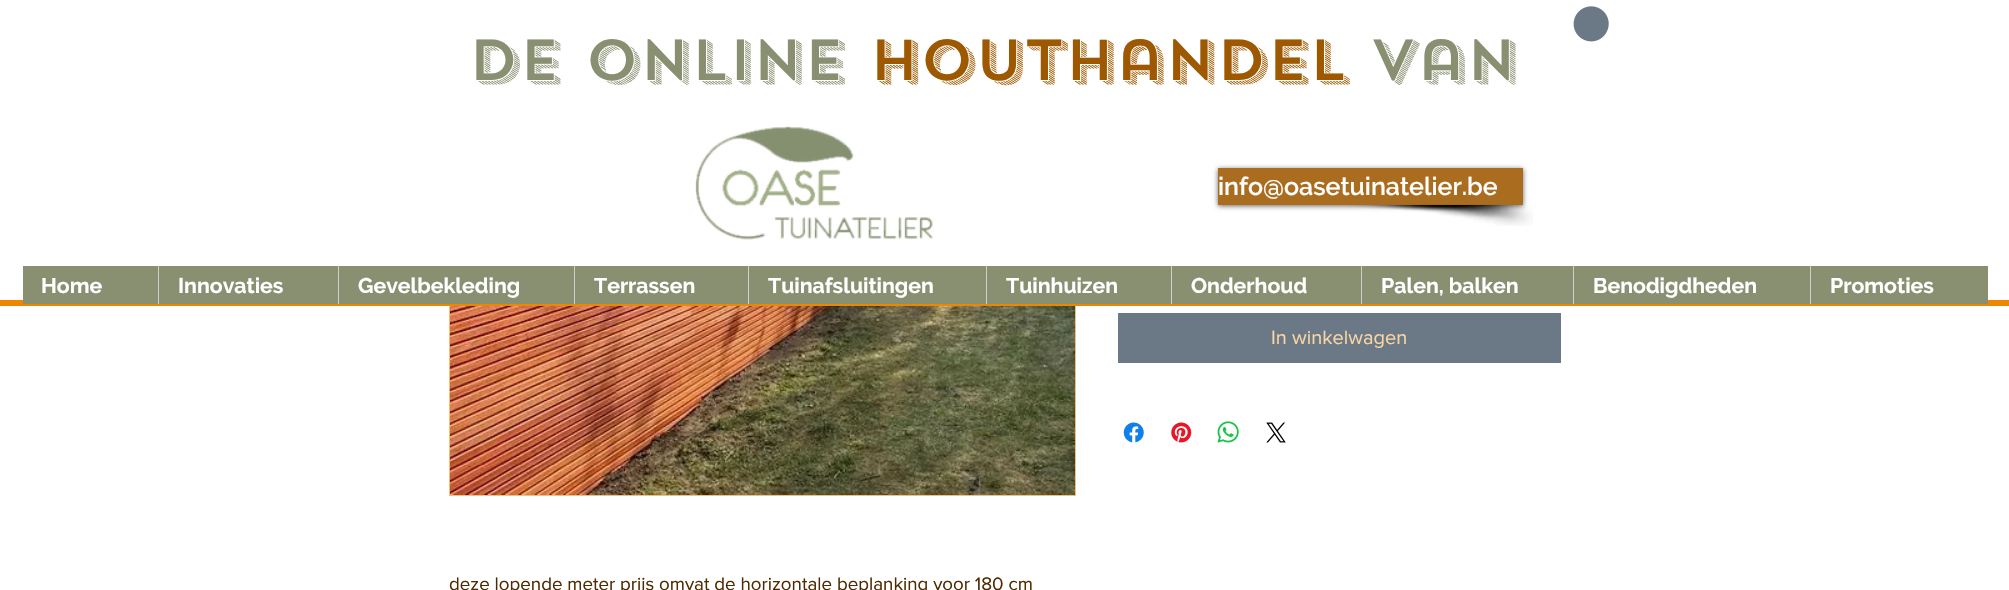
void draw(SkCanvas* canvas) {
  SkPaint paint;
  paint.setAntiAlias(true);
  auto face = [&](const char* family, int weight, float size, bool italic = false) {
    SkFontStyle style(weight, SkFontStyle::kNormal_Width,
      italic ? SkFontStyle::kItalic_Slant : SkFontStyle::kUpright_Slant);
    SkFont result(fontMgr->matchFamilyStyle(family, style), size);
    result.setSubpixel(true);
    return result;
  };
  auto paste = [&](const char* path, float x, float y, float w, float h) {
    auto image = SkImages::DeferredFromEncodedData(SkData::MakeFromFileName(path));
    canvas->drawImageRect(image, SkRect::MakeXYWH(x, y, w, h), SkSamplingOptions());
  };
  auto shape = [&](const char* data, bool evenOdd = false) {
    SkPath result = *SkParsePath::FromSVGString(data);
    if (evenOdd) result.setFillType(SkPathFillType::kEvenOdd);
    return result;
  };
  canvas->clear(0xffffffff);
  paint.setStroke(true);
  paint.setStrokeWidth(1);
  paint.setColor(0xfff3be79);
  canvas->drawRect(SkRect::MakeXYWH(449.5f, 25.5f, 626, 470), paint);
  paint.setStroke(false);
  paint.setColor(0xffffffff);
  canvas->drawRect(SkRect::MakeXYWH(449, 25, 627, 275), paint);
  paint.setColor(0xffed8600);
  canvas->drawRect(SkRect::MakeXYWH(0, 300, 2009, 6), paint);
  paste("img/1.png", 1573, 6, 36, 36);
  paste("img/2.png", 695, 126, 238, 114);
  paste("img/3.png", 1347, 204, 186, 22);
  canvas->save();
  canvas->clipPath(shape("M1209 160H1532V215H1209ZM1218 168H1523V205H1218Z", true), true);
  paint.setColor(0x99000000);
  paint.setMaskFilter(SkMaskFilter::MakeBlur(kNormal_SkBlurStyle, 2.5f));
  canvas->drawRect(SkRect::MakeXYWH(1218, 169, 305, 37), paint);
  paint.setMaskFilter(nullptr);
  canvas->restore();
  {
    const struct { float x, y, w, h; SkColor color; } items[] = {
      {1218, 168, 305, 37, 0xe09e5900},
      {23, 266, 1965, 38, 0xff898f71},
      {158, 266, 1, 38, 0xffcfcfcf},
      {338, 266, 1, 38, 0xffcfcfcf},
      {574, 266, 1, 38, 0xffcfcfcf},
      {748, 266, 1, 38, 0xffcfcfcf},
      {986, 266, 1, 38, 0xffcfcfcf},
      {1171, 266, 1, 38, 0xffcfcfcf},
      {1361, 266, 1, 38, 0xffcfcfcf},
      {1573, 266, 1, 38, 0xffcfcfcf},
      {1810, 266, 1, 38, 0xffcfcfcf},
      {1118, 313, 443, 50, 0xff6b7986},
    };
    for (auto [x, y, w, h, color] : items) {
      paint.setColor(color);
      canvas->drawRect(SkRect::MakeXYWH(x, y, w, h), paint);
    }
  }
  paste("img/4.png", 1123, 422, 21, 21);
  paste("img/5.png", 1171, 422, 21, 21);
  paste("img/6.png", 1217, 421, 22, 22);
  paste("img/7.png", 1266, 422, 20, 21);
  paste("img/8.png", 450, 306, 625, 189);
  auto f0 = face("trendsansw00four", 500, 57.5f);
  paint.setColor(0xff898f71);
  canvas->drawString("de online", 468, 80, f0, paint);
  paint.setColor(0xff9e5900);
  canvas->drawString("houthandel", 869, 80, f0, paint);
  paint.setColor(0xff898f71);
  canvas->drawString("van", 1370, 80, f0, paint);
  auto f1 = face("Raleway", 600, 25);
  paint.setColor(0xffffffff);
  canvas->drawString("info@oasetuinatelier.be", 1218, 195, f1, paint);
  auto f2 = face("Raleway", 700, 21.25f);
  {
    const struct { const char* s; float x, y; } items[] = {
      {"Home", 41, 293},
      {"Innovaties", 178, 293},
      {"Gevelbekleding", 358, 293},
      {"Terrassen", 594, 293},
      {"Tuinafsluitingen", 768, 293},
      {"Tuinhuizen", 1006, 293},
      {"Onderhoud", 1191, 293},
      {"Palen, balken", 1381, 293},
      {"Benodigdheden", 1593, 293},
      {"Promoties", 1830, 293},
    };
    for (auto [s, x, y] : items) {
      canvas->drawString(s, x, y, f2, paint);
    }
  }
  auto f3 = face("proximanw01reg", 400, 20);
  paint.setColor(0xfff9d5a6);
  canvas->drawString("In winkelwagen", 1271, 344, f3, paint);
  auto f4 = face("proximanw01reg", 400, 18.75f);
  paint.setColor(0xff4f2c00);
  canvas->drawString("deze lopende meter prijs omvat de horizontale beplanking voor 180 cm", 449, 590, f4, paint);
}
